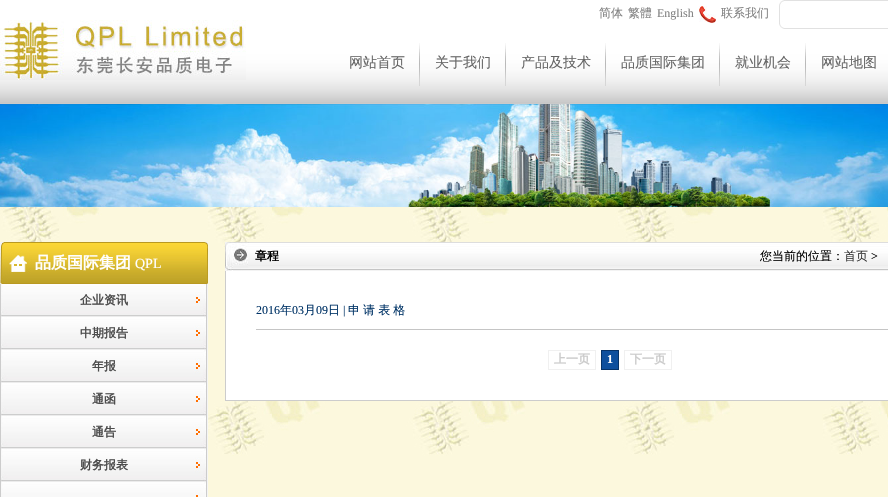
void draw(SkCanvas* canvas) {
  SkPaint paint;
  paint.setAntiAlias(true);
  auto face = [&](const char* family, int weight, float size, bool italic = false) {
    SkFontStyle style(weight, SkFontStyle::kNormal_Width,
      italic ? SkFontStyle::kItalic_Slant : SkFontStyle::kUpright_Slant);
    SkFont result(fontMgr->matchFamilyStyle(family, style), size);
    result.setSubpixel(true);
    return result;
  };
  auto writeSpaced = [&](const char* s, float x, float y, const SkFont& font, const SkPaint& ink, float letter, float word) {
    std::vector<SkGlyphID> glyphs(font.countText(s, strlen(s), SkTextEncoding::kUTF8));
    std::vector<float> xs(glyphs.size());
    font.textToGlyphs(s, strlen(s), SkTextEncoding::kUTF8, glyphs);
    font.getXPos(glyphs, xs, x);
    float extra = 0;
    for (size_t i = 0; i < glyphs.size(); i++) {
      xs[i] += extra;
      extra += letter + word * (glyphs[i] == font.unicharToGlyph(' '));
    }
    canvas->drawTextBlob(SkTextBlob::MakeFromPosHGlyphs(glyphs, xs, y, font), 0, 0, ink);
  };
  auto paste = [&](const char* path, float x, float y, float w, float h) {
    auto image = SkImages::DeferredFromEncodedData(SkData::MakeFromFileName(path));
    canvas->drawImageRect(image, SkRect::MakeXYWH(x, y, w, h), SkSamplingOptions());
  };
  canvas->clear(0xffffffff);
  paste("img/1.png", 0, 207, 888, 290);
  paste("img/2.png", 0, 0, 888, 104);
  paste("img/3.png", 0, 20, 246, 60);
  paste("img/4.png", 699, 6, 17, 17);
  paste("img/5.png", 779, 0, 109, 29);
  paste("img/6.png", 419, 43, 1, 43);
  paste("img/6.png", 505, 43, 1, 43);
  paste("img/6.png", 605, 43, 1, 43);
  paste("img/6.png", 719, 43, 1, 43);
  paste("img/6.png", 805, 43, 1, 43);
  paste("img/7.png", 0, 104, 888, 103);
  paint.setColor(0xfff4f4f4);
  canvas->drawRect(SkRect::MakeXYWH(207, 284, 1, 213), paint);
  paste("img/8.png", 0, 242, 208, 42);
  paint.setColor(0xffcccccc);
  canvas->drawRect(SkRect::MakeXYWH(206, 284, 1, 213), paint);
  canvas->drawRect(SkRect::MakeXYWH(0, 284, 1, 213), paint);
  paste("img/9.png", 1, 284, 205, 33);
  paste("img/9.png", 1, 317, 205, 33);
  paste("img/9.png", 1, 350, 205, 33);
  paste("img/9.png", 1, 383, 205, 33);
  paste("img/9.png", 1, 416, 205, 33);
  paste("img/9.png", 1, 449, 205, 33);
  paste("img/10.png", 1, 482, 205, 15);
  paste("img/11.png", 225, 242, 663, 29);
  {
    const struct { float x, y, w, h; SkColor color; } items[] = {
      {226, 271, 662, 129, 0xffffffff},
      {225, 400, 663, 1, 0xffcccccc},
      {225, 271, 1, 130, 0xffcccccc},
      {256, 329, 632, 1, 0xffc5c5c5},
    };
    for (auto [x, y, w, h, color] : items) {
      paint.setColor(color);
      canvas->drawRect(SkRect::MakeXYWH(x, y, w, h), paint);
    }
  }
  paint.setStroke(true);
  paint.setStrokeWidth(1);
  paint.setColor(0xfff0f0f0);
  canvas->drawRect(SkRect::MakeXYWH(548.5f, 350.5f, 47, 19), paint);
  paint.setStroke(false);
  paint.setColor(0xff0e4f9d);
  canvas->drawRect(SkRect::MakeXYWH(601.5f, 350.5f, 17, 19), paint);
  paint.setStroke(true);
  paint.setColor(0xff063267);
  canvas->drawRect(SkRect::MakeXYWH(601.5f, 350.5f, 17, 19), paint);
  paint.setColor(0xfff0f0f0);
  canvas->drawRect(SkRect::MakeXYWH(624.5f, 350.5f, 47, 19), paint);
  auto f0 = face("WenQuanYi Zen Hei", 500, 12);
  paint.setStroke(false);
  paint.setColor(0xff828282);
  canvas->drawString("简体", 599, 17, f0, paint);
  canvas->drawString("繁體", 628, 17, f0, paint);
  auto f1 = face("Liberation Serif", 400, 12);
  canvas->drawString("English", 657, 17, f1, paint);
  canvas->drawString("联系我们", 721, 17, f0, paint);
  auto f2 = face("WenQuanYi Zen Hei", 500, 14);
  paint.setColor(0xff656565);
  {
    const struct { const char* s; float x, y; } items[] = {
      {"网站首页", 349, 67},
      {"关于我们", 435, 67},
      {"产品及技术", 521, 67},
      {"品质国际集团", 621, 67},
      {"就业机会", 735, 67},
      {"网站地图", 821, 67},
    };
    for (auto [s, x, y] : items) {
      canvas->drawString(s, x, y, f2, paint);
    }
  }
  auto f3 = face("WenQuanYi Zen Hei", 700, 16);
  paint.setColor(0xffffffff);
  canvas->drawString("品质国际集团", 35, 268, f3, paint);
  auto f4 = face("Liberation Serif", 400, 14);
  canvas->drawString("QPL", 135, 268, f4, paint);
  auto f5 = face("WenQuanYi Zen Hei", 700, 12);
  paint.setColor(0xff4c4c4c);
  {
    const struct { const char* s; float x, y; } items[] = {
      {"企业资讯", 80, 304},
      {"中期报告", 80, 337},
      {"年报", 92, 370},
      {"通函", 92, 403},
      {"通告", 92, 436},
      {"财务报表", 80, 469},
    };
    for (auto [s, x, y] : items) {
      canvas->drawString(s, x, y, f5, paint);
    }
  }
  paint.setColor(0xff000000);
  canvas->drawString("章程", 255, 260, f5, paint);
  canvas->drawString("您当前的位置：", 760, 260, f0, paint);
  paint.setColor(0xff363636);
  canvas->drawString("首页", 844, 260, f0, paint);
  paint.setColor(0xff000000);
  canvas->drawString(">", 871, 260, f1, paint);
  paint.setColor(0xff003366);
  canvas->drawString("2016", 256, 314, f1, paint);
  canvas->drawString("年", 280, 314, f0, paint);
  canvas->drawString("03", 292, 314, f1, paint);
  canvas->drawString("月", 304, 314, f0, paint);
  canvas->drawString("09", 316, 314, f1, paint);
  canvas->drawString("日", 328, 314, f0, paint);
  canvas->drawString("|", 343, 314, f1, paint);
  writeSpaced("申 请 表 格", 348, 314, f0, paint, 0, -0.5f);
  paint.setColor(0xffcccccc);
  canvas->drawString("上一页", 554, 363, f5, paint);
  auto f6 = face("Liberation Serif", 700, 12);
  paint.setColor(0xffffffff);
  canvas->drawString("1", 607, 363, f6, paint);
  paint.setColor(0xffcccccc);
  canvas->drawString("下一页", 630, 363, f5, paint);
}
